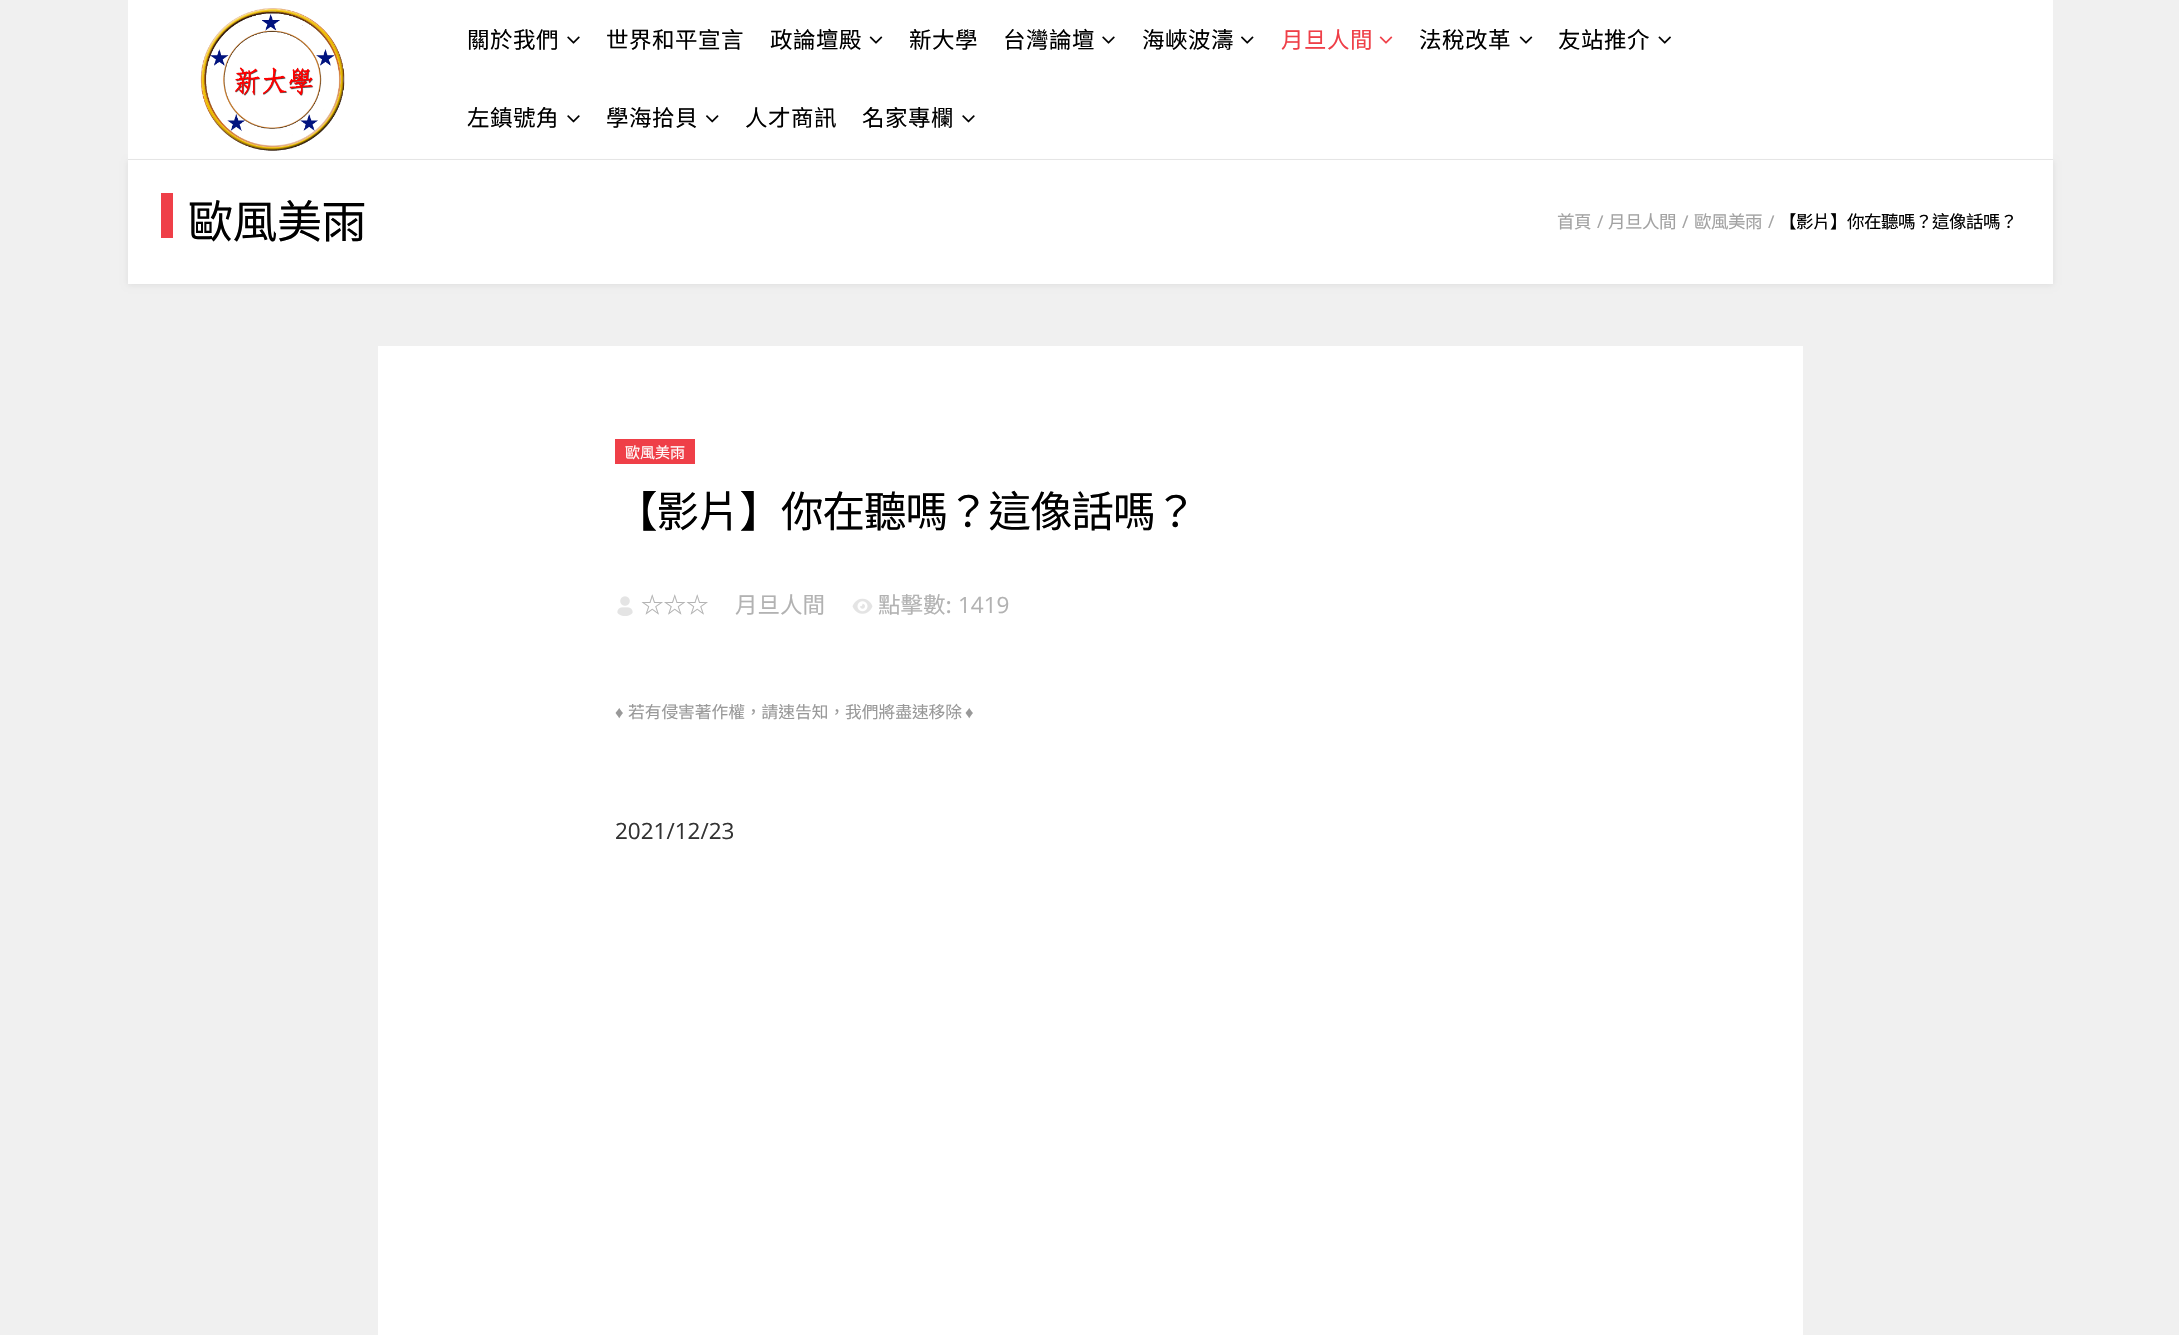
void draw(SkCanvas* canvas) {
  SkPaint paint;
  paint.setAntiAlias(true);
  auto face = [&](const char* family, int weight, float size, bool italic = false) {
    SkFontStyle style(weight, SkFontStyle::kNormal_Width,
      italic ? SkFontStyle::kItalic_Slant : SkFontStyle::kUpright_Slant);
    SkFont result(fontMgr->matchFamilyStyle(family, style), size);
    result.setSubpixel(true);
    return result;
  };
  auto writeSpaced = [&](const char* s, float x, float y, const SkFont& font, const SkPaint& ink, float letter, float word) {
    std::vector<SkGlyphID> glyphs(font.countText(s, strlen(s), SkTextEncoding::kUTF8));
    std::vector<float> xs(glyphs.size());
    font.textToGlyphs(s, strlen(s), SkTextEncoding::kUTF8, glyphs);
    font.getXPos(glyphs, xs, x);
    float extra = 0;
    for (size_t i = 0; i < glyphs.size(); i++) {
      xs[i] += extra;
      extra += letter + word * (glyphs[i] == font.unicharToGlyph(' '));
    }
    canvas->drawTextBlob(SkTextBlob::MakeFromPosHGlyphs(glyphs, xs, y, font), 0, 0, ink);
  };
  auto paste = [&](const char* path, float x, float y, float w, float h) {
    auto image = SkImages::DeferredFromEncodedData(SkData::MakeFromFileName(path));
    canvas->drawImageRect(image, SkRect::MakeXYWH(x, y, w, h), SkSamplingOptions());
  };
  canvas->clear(0xfff0f0f0);
  paint.setColor(0x14000000);
  paint.setMaskFilter(SkMaskFilter::MakeBlur(kNormal_SkBlurStyle, 3));
  canvas->drawRect(SkRect::MakeXYWH(128, 161, 1925, 124), paint);
  paint.setMaskFilter(nullptr);
  paint.setColor(0xf2ffffff);
  canvas->drawRect(SkRect::MakeXYWH(128, 0, 1925, 159), paint);
  paint.setColor(0xffe5e5e5);
  canvas->drawRect(SkRect::MakeXYWH(128, 159, 1925, 1), paint);
  paste("img/1.png", 200, 8, 145, 143);
  paste("img/2.png", 567, 36, 13, 8);
  paste("img/3.png", 869, 36, 14, 8);
  paste("img/2.png", 1102, 36, 13, 8);
  paste("img/4.png", 1241, 36, 13, 8);
  paste("img/5.png", 1379, 36, 14, 8);
  paste("img/3.png", 1519, 36, 14, 8);
  paste("img/6.png", 1658, 36, 13, 8);
  paste("img/7.png", 567, 115, 13, 8);
  paste("img/8.png", 706, 115, 13, 8);
  paste("img/7.png", 962, 115, 13, 8);
  {
    const struct { float x, y, w, h; SkColor color; } items[] = {
      {128, 160, 1925, 124, 0xffffffff},
      {161, 193, 12, 45, 0xffef3f48},
      {378, 346, 1425, 989, 0xffffffff},
      {615, 439, 80, 25, 0xffef3f48},
    };
    for (auto [x, y, w, h, color] : items) {
      paint.setColor(color);
      canvas->drawRect(SkRect::MakeXYWH(x, y, w, h), paint);
    }
  }
  paste("img/9.png", 617, 596, 16, 20);
  paste("img/10.png", 852, 598, 21, 16);
  auto f0 = face("Noto Sans CJK TC", 400, 22.5f);
  paint.setColor(0xff000000);
  {
    const struct { const char* s; float x, y; } items[] = {
      {"關於我們", 467, 48},
      {"世界和平宣言", 606, 48},
      {"政論壇殿", 770, 48},
      {"新大學", 909, 48},
      {"台灣論壇", 1003, 48},
      {"海峽波濤", 1142, 48},
    };
    for (auto [s, x, y] : items) {
      writeSpaced(s, x, y, f0, paint, 0.5f, 0);
    }
  }
  paint.setColor(0xffef3f48);
  writeSpaced("月旦人間", 1281, 48, f0, paint, 0.5f, 0);
  paint.setColor(0xff000000);
  {
    const struct { const char* s; float x, y; } items[] = {
      {"法稅改革", 1419, 48},
      {"友站推介", 1558, 48},
      {"左鎮號角", 467, 126},
      {"學海拾貝", 606, 126},
      {"人才商訊", 745, 126},
      {"名家專欄", 862, 126},
    };
    for (auto [s, x, y] : items) {
      writeSpaced(s, x, y, f0, paint, 0.5f, 0);
    }
  }
  auto f1 = face("Noto Sans CJK TC", 400, 45);
  writeSpaced("歐風美雨", 188, 238, f1, paint, -0.5f, 0);
  auto f2 = face("Noto Sans CJK TC", 400, 17.5f);
  paint.setColor(0xffa2a2a2);
  writeSpaced("首頁", 1557, 228, f2, paint, -0.5f, 0);
  auto f3 = face("Open Sans", 400, 17.5f);
  writeSpaced("/", 1597, 228, f3, paint, -0.5f, 0);
  writeSpaced("月旦人間", 1608, 228, f2, paint, -0.5f, 0);
  writeSpaced("/", 1682, 228, f3, paint, -0.5f, 0);
  writeSpaced("歐風美雨", 1694, 228, f2, paint, -0.5f, 0);
  writeSpaced("/", 1768, 228, f3, paint, -0.5f, 0);
  paint.setColor(0xff000000);
  writeSpaced("【影片】你在聽嗎？這像話嗎？", 1779, 228, f2, paint, -0.5f, 0);
  auto f4 = face("Noto Sans CJK TC", 400, 15);
  paint.setColor(0xffffffff);
  canvas->drawString("歐風美雨", 625, 458, f4, paint);
  auto f5 = face("Noto Sans CJK TC", 400, 42.5f);
  paint.setColor(0xff000000);
  writeSpaced("【影片】你在聽嗎？這像話嗎？", 615, 527, f5, paint, -1, 0);
  paint.setColor(0xffb2b2b2);
  {
    const struct { const char* s; float x, y; } items[] = {
      {"☆☆☆", 641, 613},
      {"月旦人間", 735, 613},
      {"點擊數:", 878, 613},
    };
    for (auto [s, x, y] : items) {
      canvas->drawString(s, x, y, f0, paint);
    }
  }
  auto f6 = face("Open Sans", 400, 22.5f);
  canvas->drawString("1419", 958, 613, f6, paint);
  auto f7 = face("Liberation Sans", 400, 16.7f);
  paint.setColor(0xff999999);
  canvas->drawString("♦", 615, 718, f7, paint);
  auto f8 = face("Noto Sans CJK TC", 400, 16.7f);
  canvas->drawString("若有侵害著作權，請速告知，我們將盡速移除", 628, 718, f8, paint);
  canvas->drawString("♦", 965, 718, f7, paint);
  paint.setColor(0xff333333);
  canvas->drawString("2021/12/23", 615, 839, f6, paint);
}
